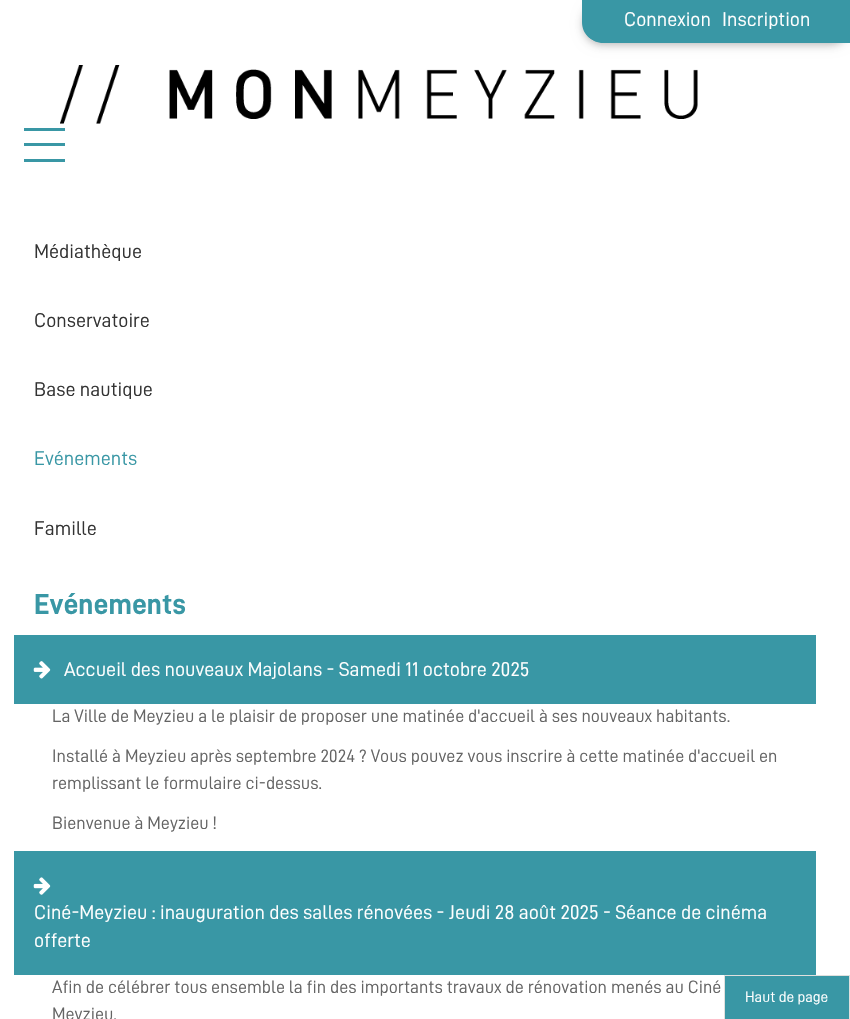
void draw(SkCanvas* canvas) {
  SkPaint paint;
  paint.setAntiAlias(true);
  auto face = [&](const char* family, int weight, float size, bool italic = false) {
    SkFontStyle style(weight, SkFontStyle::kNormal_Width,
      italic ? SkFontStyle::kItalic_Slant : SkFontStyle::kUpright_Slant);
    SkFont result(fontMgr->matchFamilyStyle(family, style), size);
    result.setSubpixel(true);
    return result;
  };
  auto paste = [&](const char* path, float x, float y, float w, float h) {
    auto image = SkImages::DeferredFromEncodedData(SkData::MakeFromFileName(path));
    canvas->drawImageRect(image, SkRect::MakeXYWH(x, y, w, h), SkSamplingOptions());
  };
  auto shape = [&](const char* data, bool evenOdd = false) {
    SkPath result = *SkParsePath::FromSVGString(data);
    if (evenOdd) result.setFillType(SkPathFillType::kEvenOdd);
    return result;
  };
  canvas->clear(0xffffffff);
  paste("img/1.png", 60, 65, 638, 59);
  paint.setColor(0x1f000000);
  paint.setMaskFilter(SkMaskFilter::MakeBlur(kNormal_SkBlurStyle, 6));
  canvas->drawRoundRect(SkRect::MakeXYWH(583, 3, 267, 42), 20, 20, paint);
  paint.setMaskFilter(nullptr);
  paint.setColor(0x29000000);
  paint.setMaskFilter(SkMaskFilter::MakeBlur(kNormal_SkBlurStyle, 3));
  canvas->drawRoundRect(SkRect::MakeXYWH(583, 3, 267, 42), 20, 20, paint);
  paint.setMaskFilter(nullptr);
  paint.setColor(0xff3997a5);
  canvas->drawPath(shape("M583 0H850V43H603C592 43 583 34 583 23Z"), paint);
  canvas->drawPath(shape("M582 0H850V42H602C591 42 582 34 582 22ZM584 0H850V41H602C592 41 584 33 584 22Z", true), paint);
  {
    const struct { float x, y, w, h; SkColor color; } items[] = {
      {24, 128, 41, 3, 0xff3997a5},
      {24, 143, 41, 3, 0xff3997a5},
      {24, 159, 41, 3, 0xff3997a5},
      {14, 635, 802, 69, 0xff3997a5},
    };
    for (auto [x, y, w, h, color] : items) {
      paint.setColor(color);
      canvas->drawRect(SkRect::MakeXYWH(x, y, w, h), paint);
    }
  }
  paste("img/2.png", 33, 661, 18, 18);
  canvas->drawRect(SkRect::MakeXYWH(14, 851, 802, 124), paint);
  paste("img/3.png", 33, 877, 18, 18);
  canvas->drawRect(SkRect::MakeXYWH(724.5f, 975.5f, 125, 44), paint);
  paint.setStroke(true);
  paint.setStrokeWidth(1);
  paint.setColor(0xffe0e0de);
  canvas->drawRect(SkRect::MakeXYWH(724.5f, 975.5f, 125, 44), paint);
  auto f0 = face("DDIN", 400, 20);
  paint.setStroke(false);
  paint.setColor(0xffffffff);
  canvas->drawString("Connexion", 624, 26, f0, paint);
  canvas->drawString("Inscription", 722, 26, f0, paint);
  paint.setColor(0xff333333);
  {
    const struct { const char* s; float x, y; } items[] = {
      {"Médiathèque", 34, 258},
      {"Conservatoire", 34, 327},
      {"Base nautique", 34, 396},
    };
    for (auto [s, x, y] : items) {
      canvas->drawString(s, x, y, f0, paint);
    }
  }
  paint.setColor(0xff3997a5);
  canvas->drawString("Evénements", 34, 465, f0, paint);
  paint.setColor(0xff333333);
  canvas->drawString("Famille", 34, 535, f0, paint);
  auto f1 = face("DDIN", 700, 29);
  paint.setColor(0xff3997a5);
  canvas->drawString("Evénements", 34, 614, f1, paint);
  paint.setColor(0xffffffff);
  canvas->drawString("Accueil des nouveaux Majolans - Samedi 11 octobre 2025", 64, 676, f0, paint);
  auto f2 = face("DDIN", 400, 18);
  paint.setColor(0xff646464);
  {
    const struct { const char* s; float x, y; } items[] = {
      {"La Ville de Meyzieu a le plaisir de proposer une matinée d'accueil à ses nouveaux habitants.", 52, 722},
      {"Installé à Meyzieu après septembre 2024 ? Vous pouvez vous inscrire à cette matinée d'accueil en", 52, 762},
      {"remplissant le formulaire ci-dessus.", 52, 789},
      {"Bienvenue à Meyzieu !", 52, 829},
    };
    for (auto [s, x, y] : items) {
      canvas->drawString(s, x, y, f2, paint);
    }
  }
  paint.setColor(0xffffffff);
  canvas->drawString("Ciné-Meyzieu : inauguration des salles rénovées - Jeudi 28 août 2025 - Séance de cinéma", 34, 919, f0, paint);
  canvas->drawString("offerte", 34, 947, f0, paint);
  paint.setColor(0xff646464);
  canvas->drawString("Afin de célébrer tous ensemble la fin des importants travaux de rénovation menés au Ciné", 52, 993, f2, paint);
  canvas->drawString("Meyzieu,", 52, 1020, f2, paint);
  auto f3 = face("DDIN", 400, 15.25f);
  paint.setColor(0xffffffff);
  canvas->drawString("Haut de page", 745, 1002, f3, paint);
}
